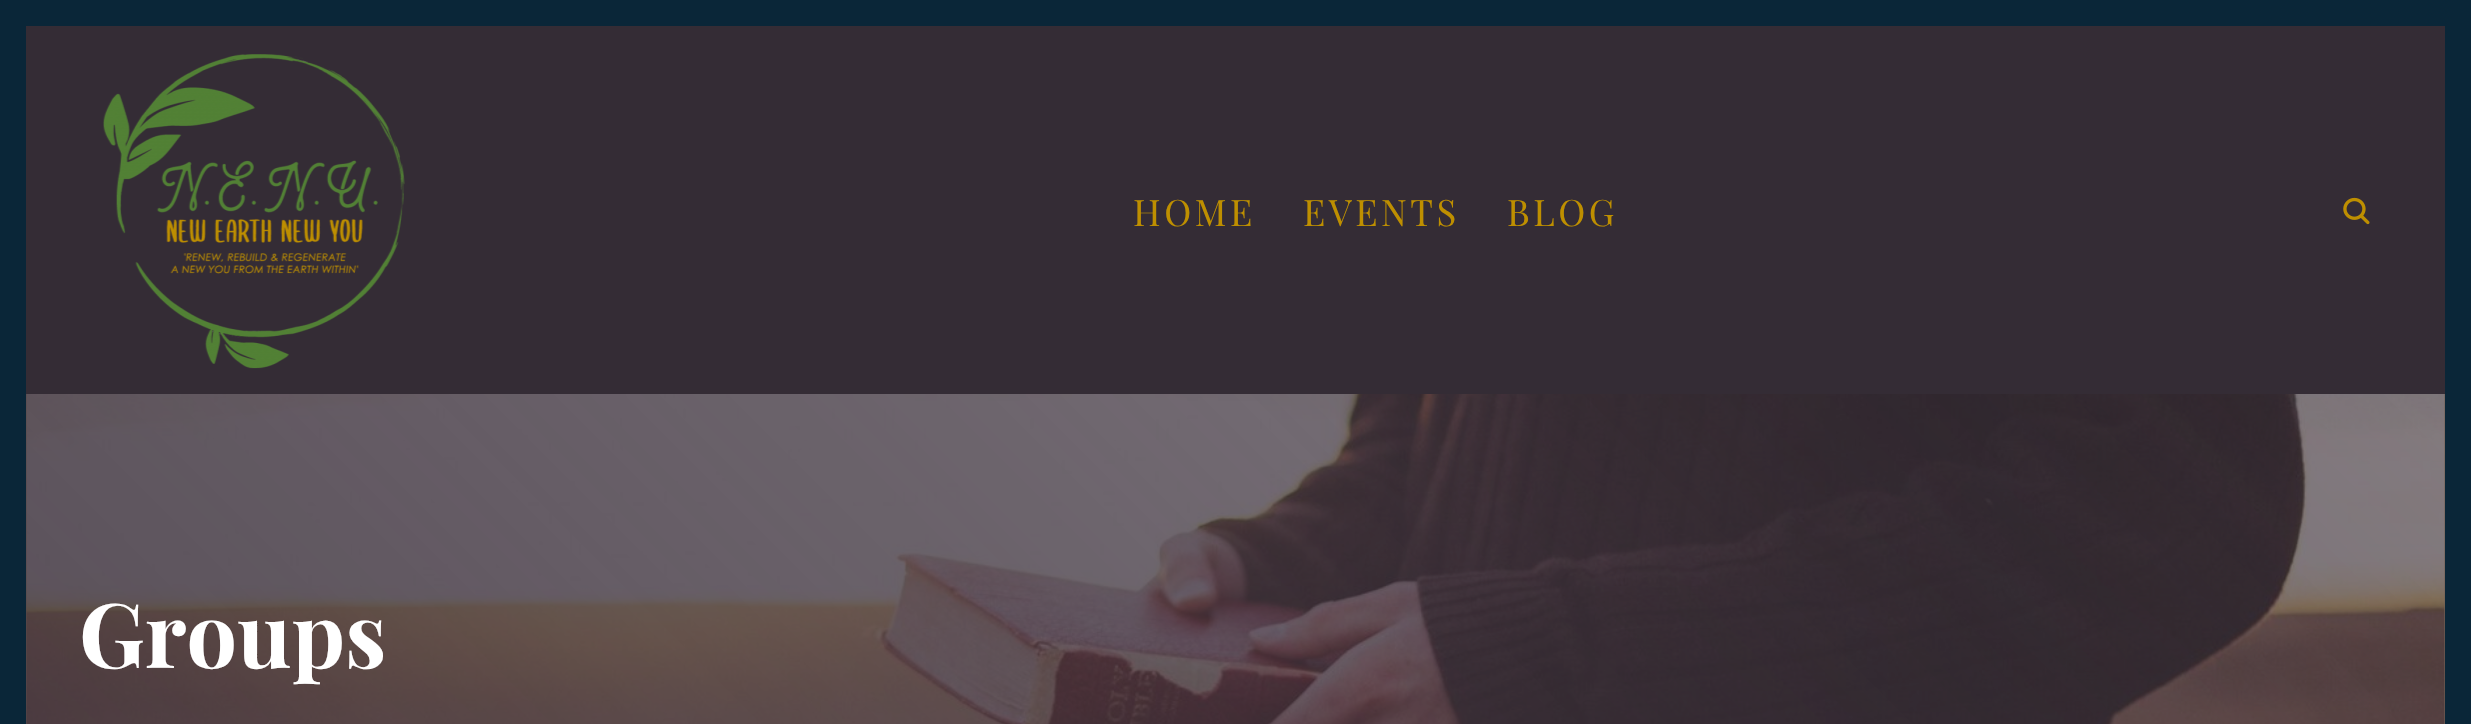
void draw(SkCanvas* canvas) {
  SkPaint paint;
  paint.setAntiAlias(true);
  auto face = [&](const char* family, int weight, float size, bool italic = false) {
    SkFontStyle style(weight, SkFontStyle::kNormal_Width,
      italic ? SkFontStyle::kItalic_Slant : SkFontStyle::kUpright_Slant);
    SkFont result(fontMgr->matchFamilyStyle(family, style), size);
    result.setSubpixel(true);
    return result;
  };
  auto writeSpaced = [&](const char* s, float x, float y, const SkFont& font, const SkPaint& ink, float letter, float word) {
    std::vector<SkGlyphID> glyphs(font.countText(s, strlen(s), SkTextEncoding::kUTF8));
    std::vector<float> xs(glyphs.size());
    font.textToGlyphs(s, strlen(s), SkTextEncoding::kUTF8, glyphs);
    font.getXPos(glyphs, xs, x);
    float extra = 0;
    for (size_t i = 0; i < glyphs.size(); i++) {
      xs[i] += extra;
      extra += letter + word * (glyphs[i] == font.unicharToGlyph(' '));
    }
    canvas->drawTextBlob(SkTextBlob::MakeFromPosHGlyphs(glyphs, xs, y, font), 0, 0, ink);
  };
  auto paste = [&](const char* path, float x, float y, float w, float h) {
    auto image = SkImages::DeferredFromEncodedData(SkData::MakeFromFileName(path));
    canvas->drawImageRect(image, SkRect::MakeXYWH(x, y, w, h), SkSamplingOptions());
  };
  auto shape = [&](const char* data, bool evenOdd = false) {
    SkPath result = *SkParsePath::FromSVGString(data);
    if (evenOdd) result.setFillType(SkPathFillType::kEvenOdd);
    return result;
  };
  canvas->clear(0xff0a2638);
  paint.setColor(0xffdbb981);
  canvas->drawPath(shape("M26 26V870L2445 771V26Z"), paint);
  paint.setColor(0xff342c35);
  canvas->drawRect(SkRect::MakeXYWH(26, 26, 2419, 368), paint);
  paste("img/1.png", 103, 54, 302, 315);
  paste("img/2.png", 2343, 197, 27, 28);
  paste("img/3.png", 26, 394, 2419, 330);
  paint.setColor(0xa6413641);
  canvas->drawPath(shape("M2445 394V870L26 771V394Z"), paint);
  {
    const SkColor colors[] = {0xa6413641, 0x00413641};
    const float stops[] = {0, 1};
    const SkPoint ends[] = {{512, 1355}, {1959, -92}};
    paint.setShader(SkGradientShader::MakeLinear(ends, colors, stops, 2, SkTileMode::kClamp));
    paint.setAlpha(255);
  }
  canvas->drawPath(shape("M2445 394V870L26 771V394Z"), paint);
  auto f0 = face("Playfair Display SC", 400, 36.5f);
  paint.setShader(nullptr);
  paint.setColor(0xffbe8f00);
  {
    const struct { const char* s; float x, y; } items[] = {
      {"HOME", 1133, 226},
      {"EVENTS", 1303, 226},
      {"BLOG", 1507, 226},
    };
    for (auto [s, x, y] : items) {
      writeSpaced(s, x, y, f0, paint, 3.5f, 0);
    }
  }
  auto f1 = face("Playfair Display", 700, 89.5f);
  paint.setColor(0xffffffff);
  canvas->drawString("Groups", 79, 668, f1, paint);
}
